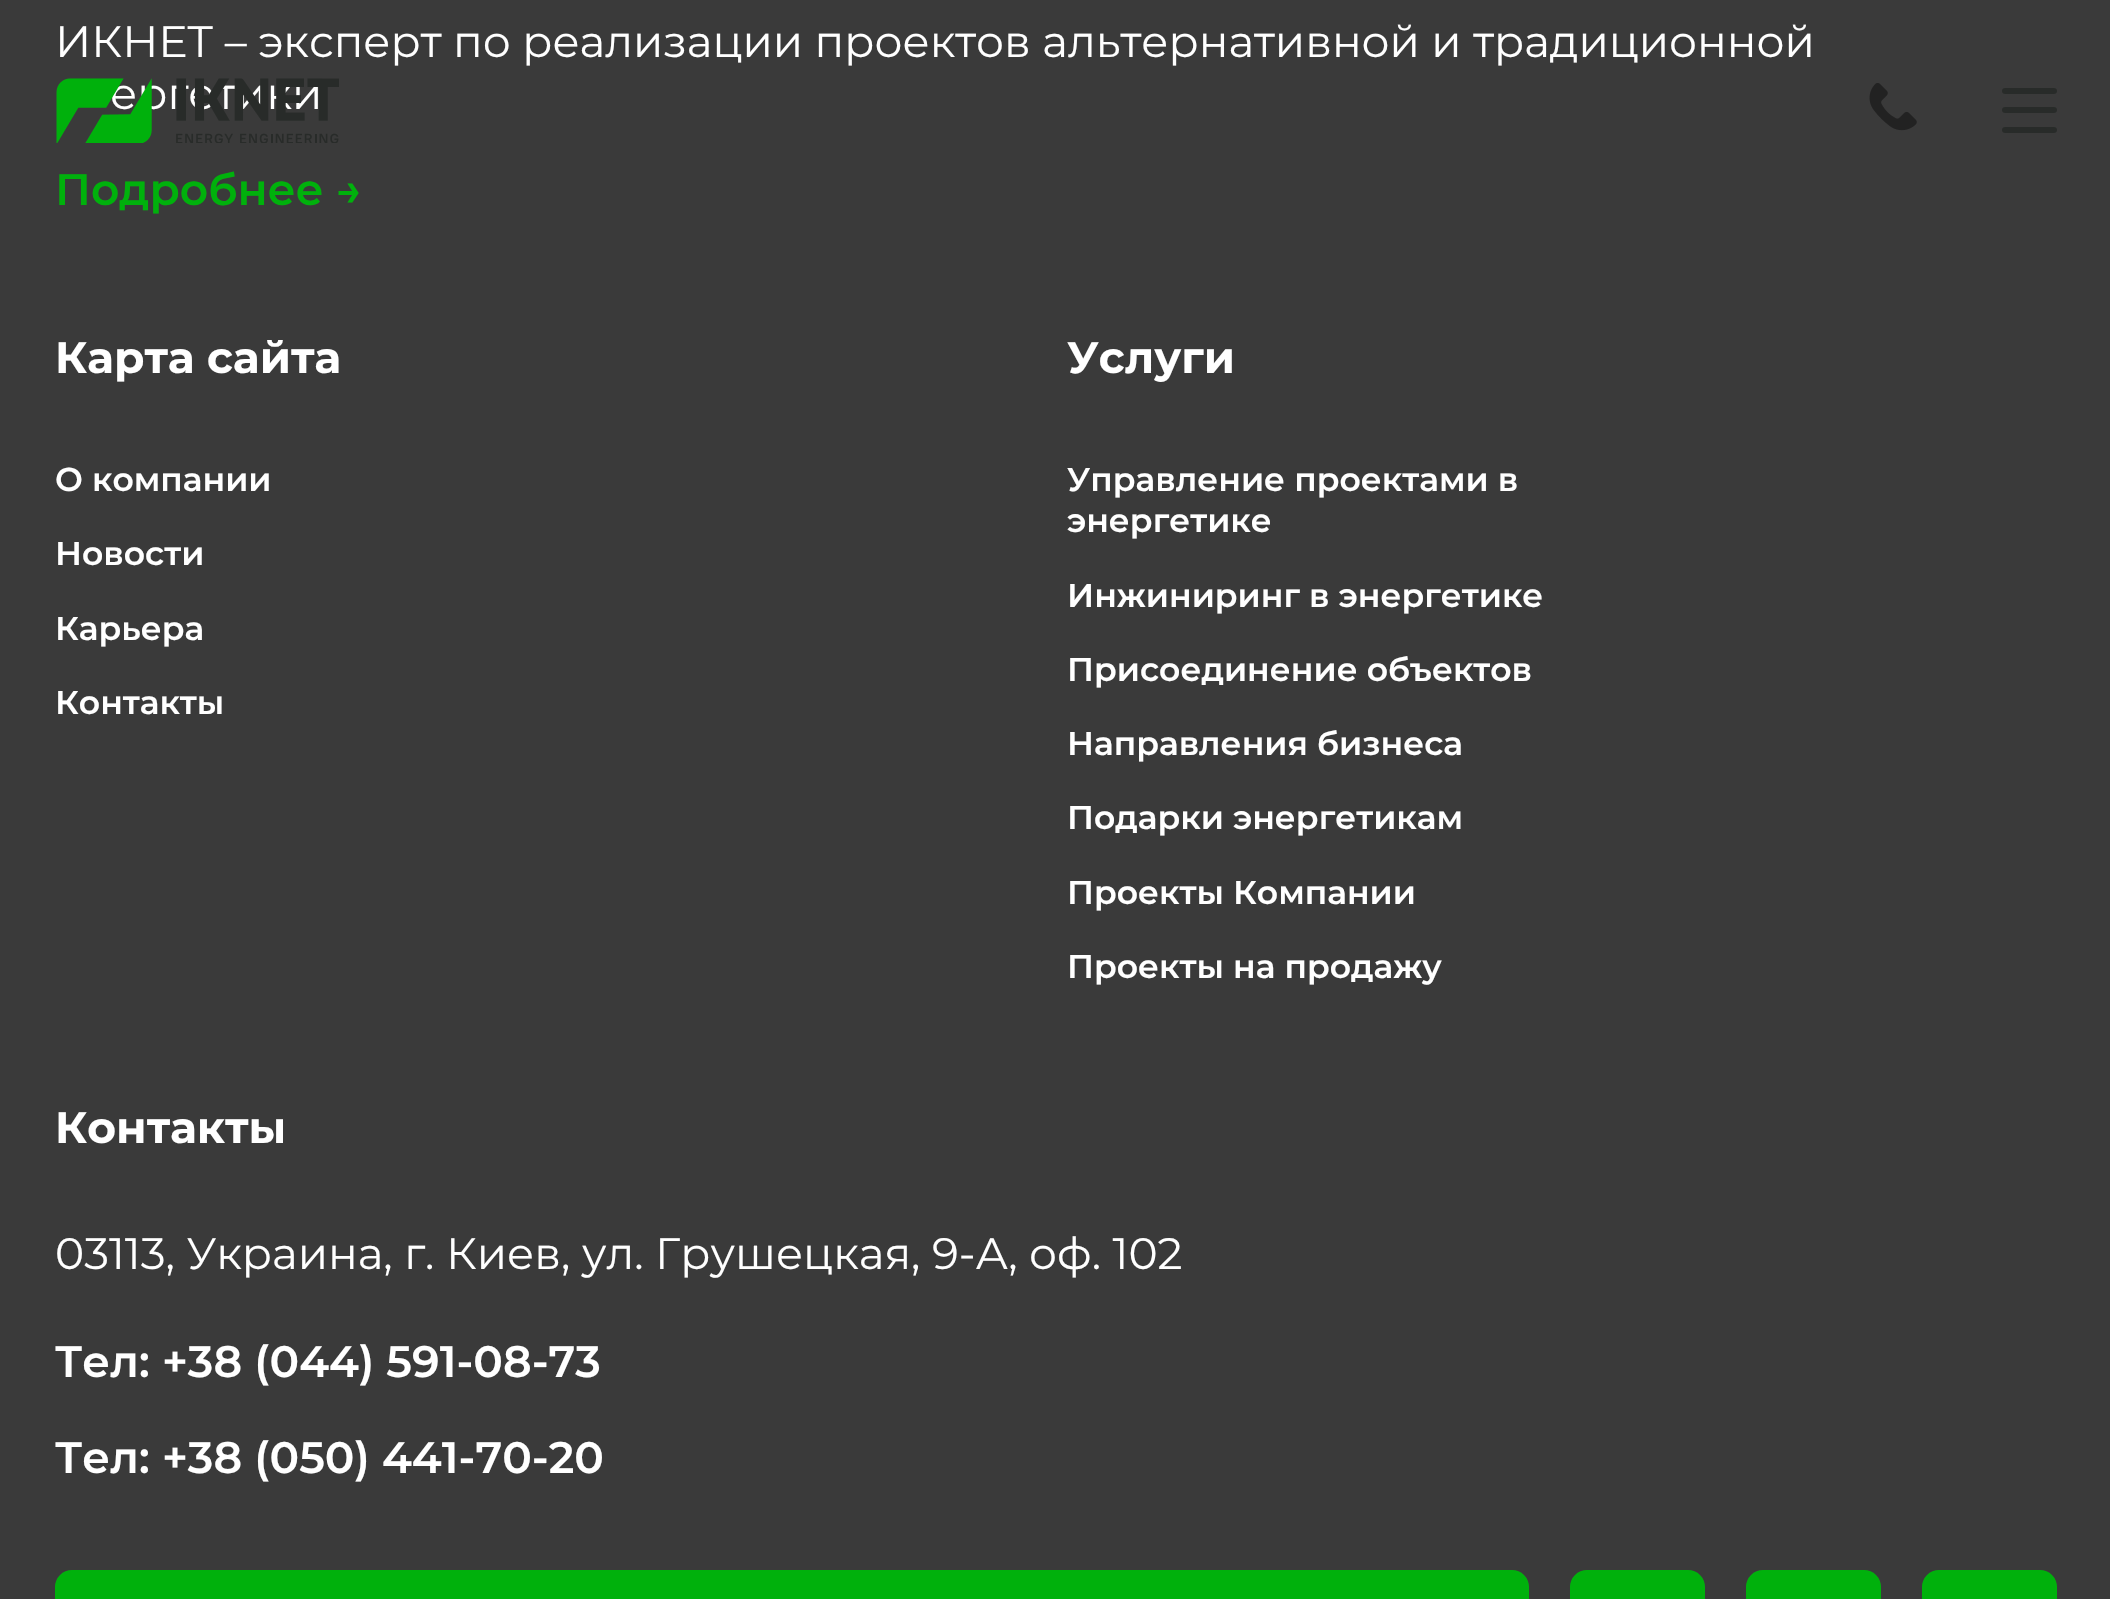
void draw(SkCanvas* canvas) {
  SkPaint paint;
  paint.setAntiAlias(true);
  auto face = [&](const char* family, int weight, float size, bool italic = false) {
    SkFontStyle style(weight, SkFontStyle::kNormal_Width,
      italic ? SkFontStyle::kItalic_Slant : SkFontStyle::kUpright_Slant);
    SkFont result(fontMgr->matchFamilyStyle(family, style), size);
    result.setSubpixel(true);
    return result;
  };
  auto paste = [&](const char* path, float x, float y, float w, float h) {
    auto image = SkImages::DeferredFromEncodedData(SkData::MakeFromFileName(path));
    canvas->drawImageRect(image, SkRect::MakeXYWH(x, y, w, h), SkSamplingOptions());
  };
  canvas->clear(0xff3a3a3a);
  paint.setColor(0xff00b10c);
  canvas->drawRoundRect(SkRect::MakeXYWH(55, 1570, 1474, 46), 17, 17, paint);
  canvas->drawRoundRect(SkRect::MakeXYWH(1570, 1570, 135, 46), 17, 17, paint);
  canvas->drawRoundRect(SkRect::MakeXYWH(1746, 1570, 135, 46), 17, 17, paint);
  canvas->drawRoundRect(SkRect::MakeXYWH(1922, 1570, 135, 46), 17, 17, paint);
  paste("img/2.png", 1869, 83, 48, 48);
  paint.setColor(0xff282b29);
  canvas->drawRoundRect(SkRect::MakeXYWH(2002, 88, 55, 6), 3, 3, paint);
  canvas->drawRoundRect(SkRect::MakeXYWH(2002, 107, 55, 6), 3, 3, paint);
  canvas->drawRoundRect(SkRect::MakeXYWH(2002, 127, 55, 6), 3, 3, paint);
  auto f0 = face("Montserrat", 400, 44);
  paint.setColor(0xffffffff);
  canvas->drawString("ИКНЕТ – эксперт по реализации проектов альтернативной и традиционной", 55, 57, f0, paint);
  canvas->drawString("ергетики", 110, 109, f0, paint);
  auto f1 = face("Montserrat", 600, 44);
  paint.setColor(0xff00b10c);
  canvas->drawString("Подробнее →", 55, 205, f1, paint);
  auto f2 = face("Montserrat", 700, 44);
  paint.setColor(0xffffffff);
  canvas->drawString("Карта сайта", 55, 373, f2, paint);
  auto f3 = face("Montserrat", 600, 33);
  {
    const struct { const char* s; float x, y; } items[] = {
      {"О компании", 55, 491},
      {"Новости", 55, 565},
      {"Карьера", 55, 640},
      {"Контакты", 55, 714},
    };
    for (auto [s, x, y] : items) {
      canvas->drawString(s, x, y, f3, paint);
    }
  }
  canvas->drawString("Услуги", 1067, 373, f2, paint);
  {
    const struct { const char* s; float x, y; } items[] = {
      {"Управление проектами в", 1067, 491},
      {"энергетике", 1067, 532},
      {"Инжиниринг в энергетике", 1067, 607},
      {"Присоединение объектов", 1067, 681},
      {"Направления бизнеса", 1067, 755},
      {"Подарки энергетикам", 1067, 829},
      {"Проекты Компании", 1067, 904},
      {"Проекты на продажу", 1067, 978},
    };
    for (auto [s, x, y] : items) {
      canvas->drawString(s, x, y, f3, paint);
    }
  }
  canvas->drawString("Контакты", 55, 1143, f2, paint);
  canvas->drawString("03113, Украина, г. Киев, ул. Грушецкая, 9-А, оф. 102", 55, 1269, f0, paint);
  canvas->drawString("Тел: +38 (044) 591-08-73", 55, 1377, f1, paint);
  canvas->drawString("Тел: +38 (050) 441-70-20", 55, 1473, f1, paint);
  paste("img/1.png", 56, 78, 283, 65);
}
